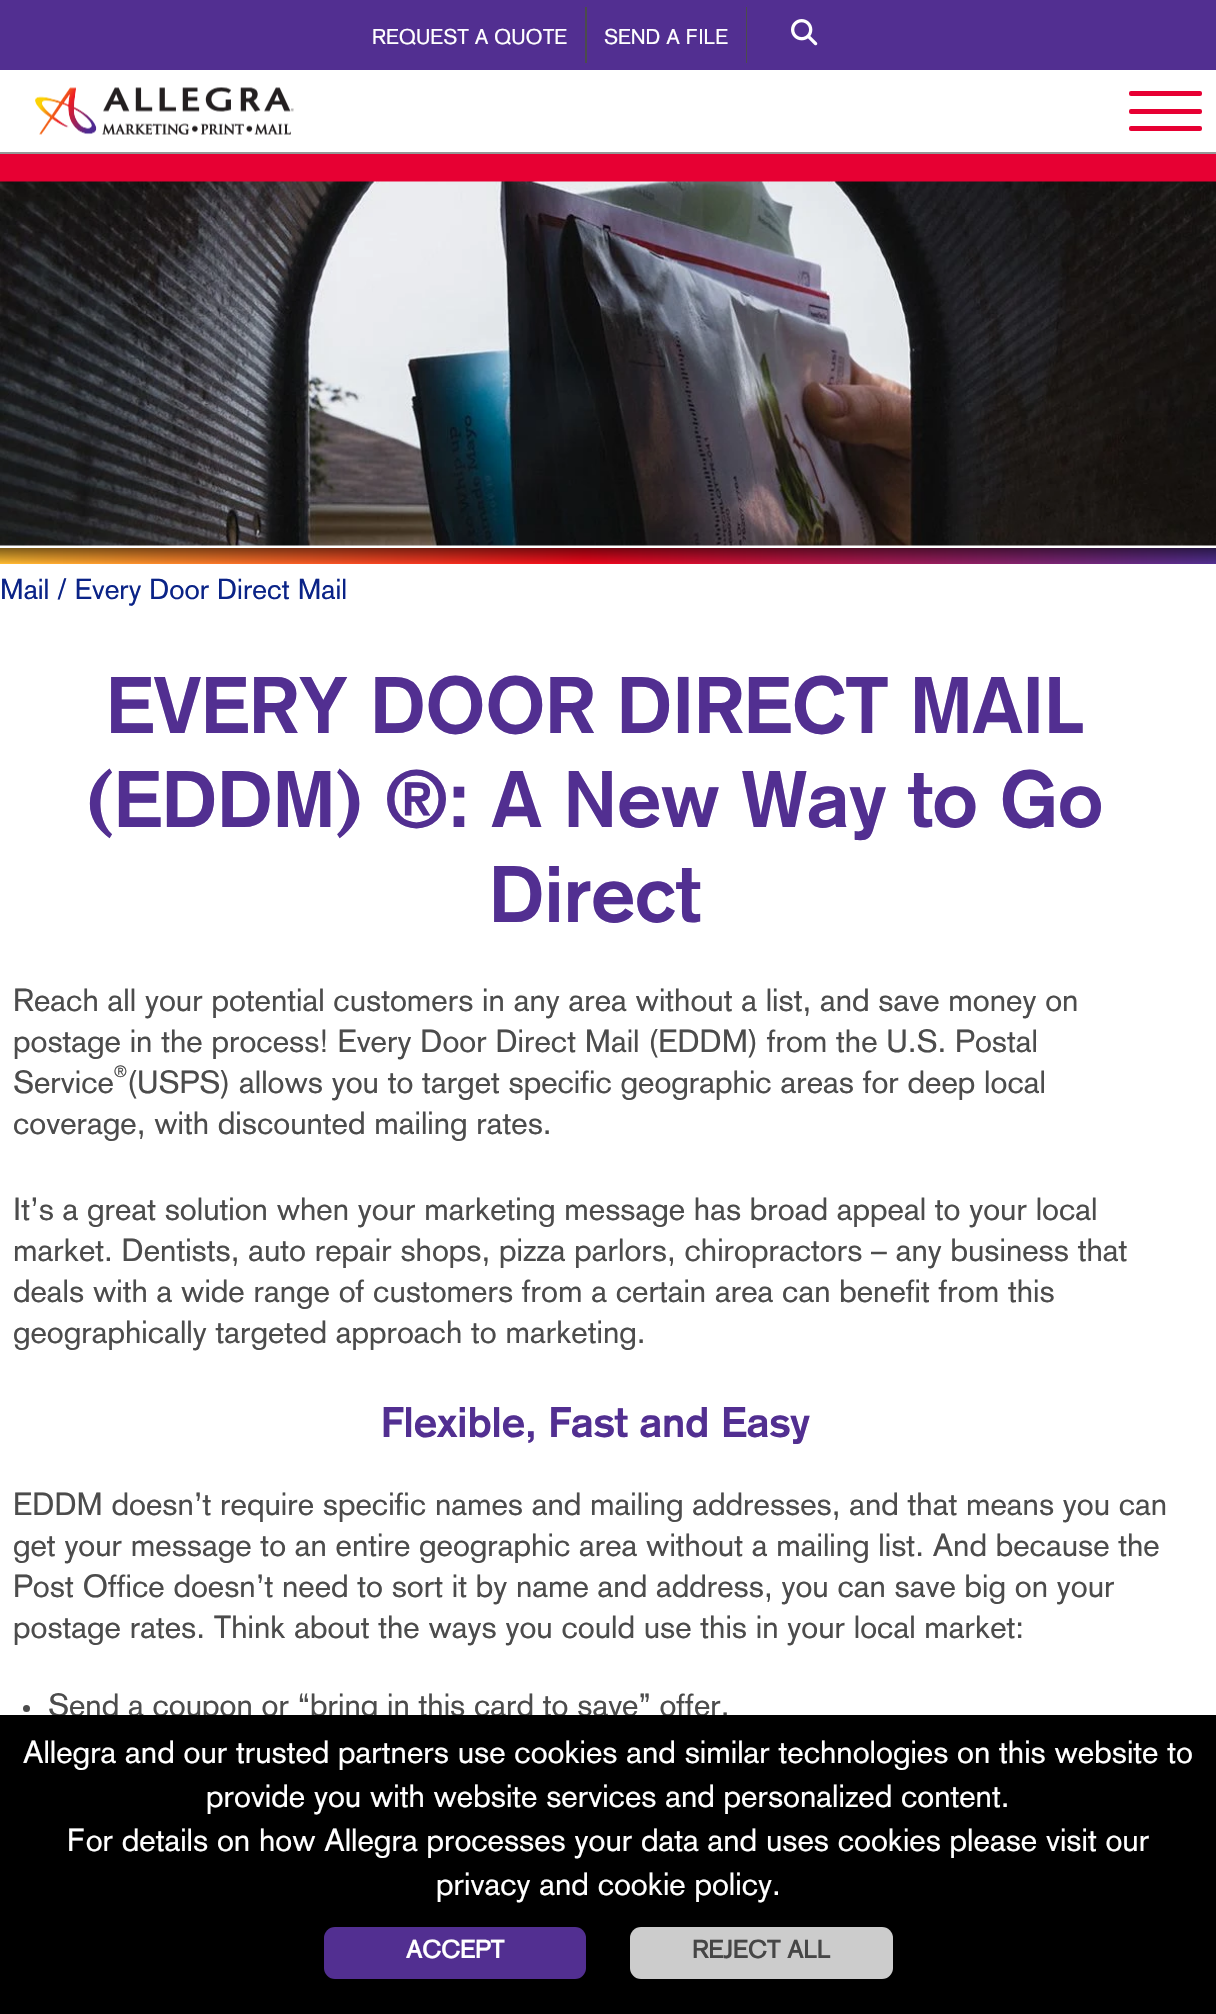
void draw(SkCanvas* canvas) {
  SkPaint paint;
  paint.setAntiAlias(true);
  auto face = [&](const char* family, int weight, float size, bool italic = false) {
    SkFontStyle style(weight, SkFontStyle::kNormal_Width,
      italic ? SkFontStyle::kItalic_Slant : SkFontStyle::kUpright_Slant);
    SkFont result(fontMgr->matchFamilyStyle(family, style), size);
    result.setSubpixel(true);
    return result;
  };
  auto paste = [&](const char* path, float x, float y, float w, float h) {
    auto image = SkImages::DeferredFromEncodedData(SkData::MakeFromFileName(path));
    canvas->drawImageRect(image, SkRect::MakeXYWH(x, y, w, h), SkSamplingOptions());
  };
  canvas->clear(0xffffffff);
  {
    const struct { float x, y, w, h; SkColor color; } items[] = {
      {0, 152, 1216, 2, 0xff979797},
      {0, 0, 1216, 70, 0xff522f91},
      {585, 7, 2, 56, 0xff4c4c4c},
      {746, 7, 1, 56, 0xff4c4c4c},
    };
    for (auto [x, y, w, h, color] : items) {
      paint.setColor(color);
      canvas->drawRect(SkRect::MakeXYWH(x, y, w, h), paint);
    }
  }
  paste("img/1.png", 791, 19, 27, 27);
  paste("img/2.png", 35, 87, 259, 48);
  paint.setColor(0xffe70033);
  canvas->drawRoundRect(SkRect::MakeXYWH(1129, 91, 73, 5), 2, 2, paint);
  canvas->drawRoundRect(SkRect::MakeXYWH(1129, 109, 73, 5), 2, 2, paint);
  canvas->drawRoundRect(SkRect::MakeXYWH(1129, 126, 73, 5), 2, 2, paint);
  canvas->drawRect(SkRect::MakeXYWH(0, 154, 1216, 28), paint);
  paste("img/3.png", 0, 181, 1216, 365);
  {
    const SkColor colors[] = {0xfffdba31, 0xffef061a, 0xff522f91};
    const float stops[] = {0, 0.48f, 1};
    const SkPoint ends[] = {{0, 556}, {1216, 556}};
    paint.setShader(SkGradientShader::MakeLinear(ends, colors, stops, 3, SkTileMode::kClamp));
    paint.setAlpha(255);
  }
  canvas->drawRect(SkRect::MakeXYWH(0, 548, 1216, 16), paint);
  {
    const SkColor colors[] = {0x00000000, 0x80000000};
    const float stops[] = {0, 1};
    const SkPoint ends[] = {{608, 564}, {608, 548}};
    paint.setShader(SkGradientShader::MakeLinear(ends, colors, stops, 2, SkTileMode::kClamp));
    paint.setAlpha(255);
  }
  canvas->drawRect(SkRect::MakeXYWH(0, 548, 1216, 15), paint);
  paint.setShader(nullptr);
  paint.setColor(0xff4c4c4c);
  canvas->drawCircle(26.5f, 1708.5f, 3.5f, paint);
  auto f0 = face("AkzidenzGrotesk", 400, 21);
  paint.setColor(0xffffffff);
  canvas->drawString("REQUEST A QUOTE", 372, 44, f0, paint);
  canvas->drawString("SEND A FILE", 604, 44, f0, paint);
  auto f1 = face("AkzidenzGrotesk", 400, 28.4f);
  paint.setColor(0xff0a2387);
  canvas->drawString("Mail / Every Door Direct Mail", 0, 599, f1, paint);
  auto f2 = face("AkzidenzGrotesk", 700, 78.75f);
  paint.setColor(0xff522f91);
  {
    const struct { const char* s; float x, y; } items[] = {
      {"EVERY DOOR DIRECT MAIL", 106, 733},
      {"(EDDM) ®: A New Way to Go", 86, 827},
      {"Direct", 489, 922},
    };
    for (auto [s, x, y] : items) {
      canvas->drawString(s, x, y, f2, paint);
    }
  }
  auto f3 = face("AkzidenzGrotesk", 400, 31.5f);
  paint.setColor(0xff4c4c4c);
  {
    const struct { const char* s; float x, y; } items[] = {
      {"Reach all your potential customers in any area without a list, and save money on", 13, 1011},
      {"postage in the process! Every Door Direct Mail (EDDM) from the U.S. Postal", 13, 1052},
      {"Service", 13, 1093},
    };
    for (auto [s, x, y] : items) {
      canvas->drawString(s, x, y, f3, paint);
    }
  }
  auto f4 = face("AkzidenzGrotesk", 400, 16);
  canvas->drawString("®", 114, 1077, f4, paint);
  {
    const struct { const char* s; float x, y; } items[] = {
      {"(USPS) allows you to target specific geographic areas for deep local", 127, 1093},
      {"coverage, with discounted mailing rates.", 13, 1134},
      {"It’s a great solution when your marketing message has broad appeal to your local", 13, 1220},
      {"market. Dentists, auto repair shops, pizza parlors, chiropractors – any business that", 13, 1261},
      {"deals with a wide range of customers from a certain area can benefit from this", 13, 1302},
      {"geographically targeted approach to marketing.", 13, 1343},
    };
    for (auto [s, x, y] : items) {
      canvas->drawString(s, x, y, f3, paint);
    }
  }
  auto f5 = face("AkzidenzGrotesk", 700, 42);
  paint.setColor(0xff522f91);
  canvas->drawString("Flexible, Fast and Easy", 381, 1437, f5, paint);
  paint.setColor(0xff4c4c4c);
  {
    const struct { const char* s; float x, y; } items[] = {
      {"EDDM doesn’t require specific names and mailing addresses, and that means you can", 13, 1515},
      {"get your message to an entire geographic area without a mailing list. And because the", 13, 1556},
      {"Post Office doesn’t need to sort it by name and address, you can save big on your", 13, 1597},
      {"postage rates. Think about the ways you could use this in your local market:", 13, 1638},
      {"Send a coupon or “bring in this card to save” offer.", 48, 1716},
    };
    for (auto [s, x, y] : items) {
      canvas->drawString(s, x, y, f3, paint);
    }
  }
  paint.setColor(0xff000000);
  canvas->drawRect(SkRect::MakeXYWH(0, 1715, 1216, 299), paint);
  paint.setColor(0xffffffff);
  {
    const struct { const char* s; float x, y; } items[] = {
      {"Allegra and our trusted partners use cookies and similar technologies on this website to", 23, 1763},
      {"provide you with website services and personalized content.", 206, 1807},
      {"For details on how Allegra processes your data and uses cookies please visit our", 67, 1851},
      {"privacy and cookie policy.", 436, 1895},
    };
    for (auto [s, x, y] : items) {
      canvas->drawString(s, x, y, f3, paint);
    }
  }
  paint.setColor(0xff522f91);
  canvas->drawRoundRect(SkRect::MakeXYWH(324, 1927, 262, 52), 11, 11, paint);
  auto f6 = face("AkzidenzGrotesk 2", 700, 24.5f);
  paint.setColor(0xffffffff);
  canvas->drawString("ACCEPT", 406, 1958, f6, paint);
  paint.setColor(0xffcccccc);
  canvas->drawRoundRect(SkRect::MakeXYWH(630, 1927, 263, 52), 11, 11, paint);
  paint.setColor(0xff464646);
  canvas->drawString("REJECT ALL", 692, 1958, f6, paint);
}
